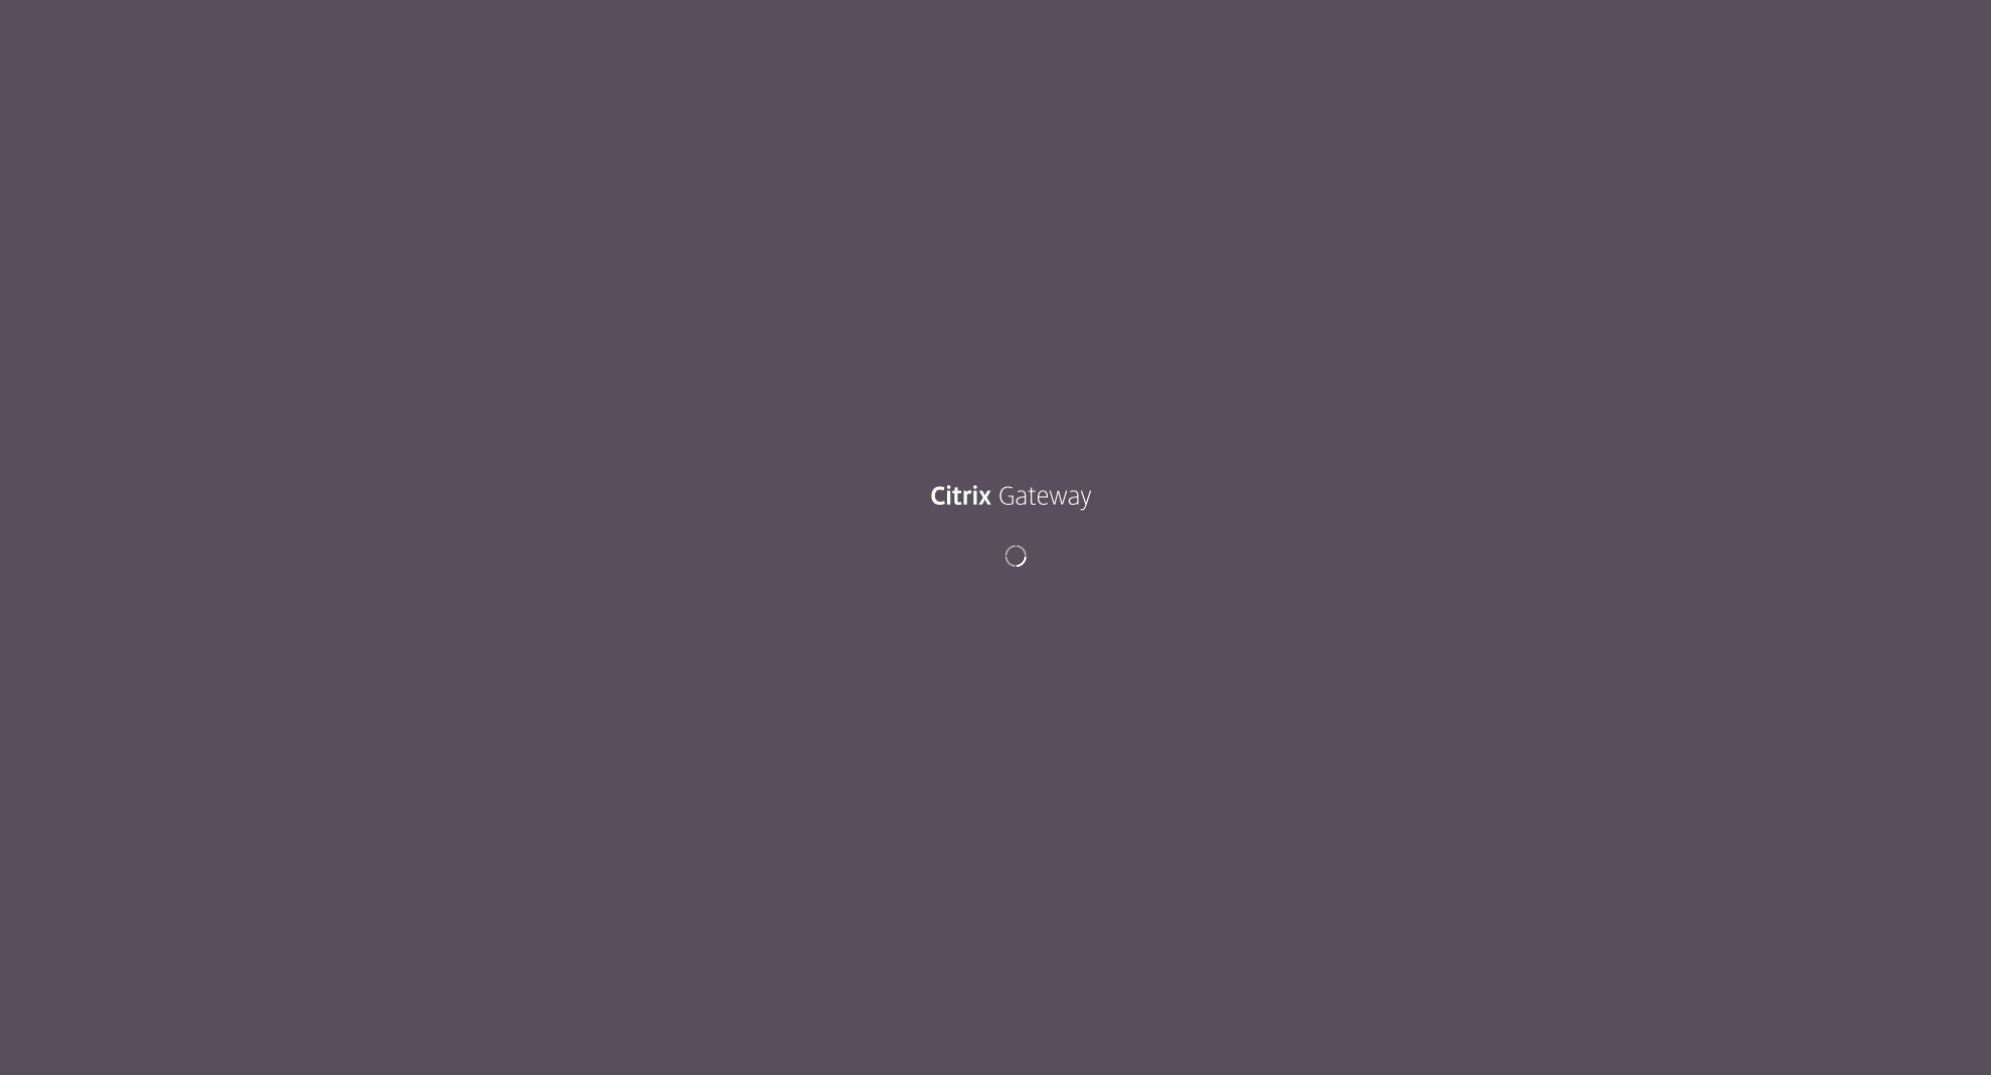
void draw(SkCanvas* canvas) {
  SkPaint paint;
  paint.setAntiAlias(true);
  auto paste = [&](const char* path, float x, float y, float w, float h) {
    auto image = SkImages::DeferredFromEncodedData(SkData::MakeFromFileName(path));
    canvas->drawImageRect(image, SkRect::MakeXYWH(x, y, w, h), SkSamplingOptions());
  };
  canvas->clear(0xff574f5b);
  paste("img/1.png", 931, 485, 161, 26);
  paste("img/2.png", 1005, 545, 22, 22);
}
